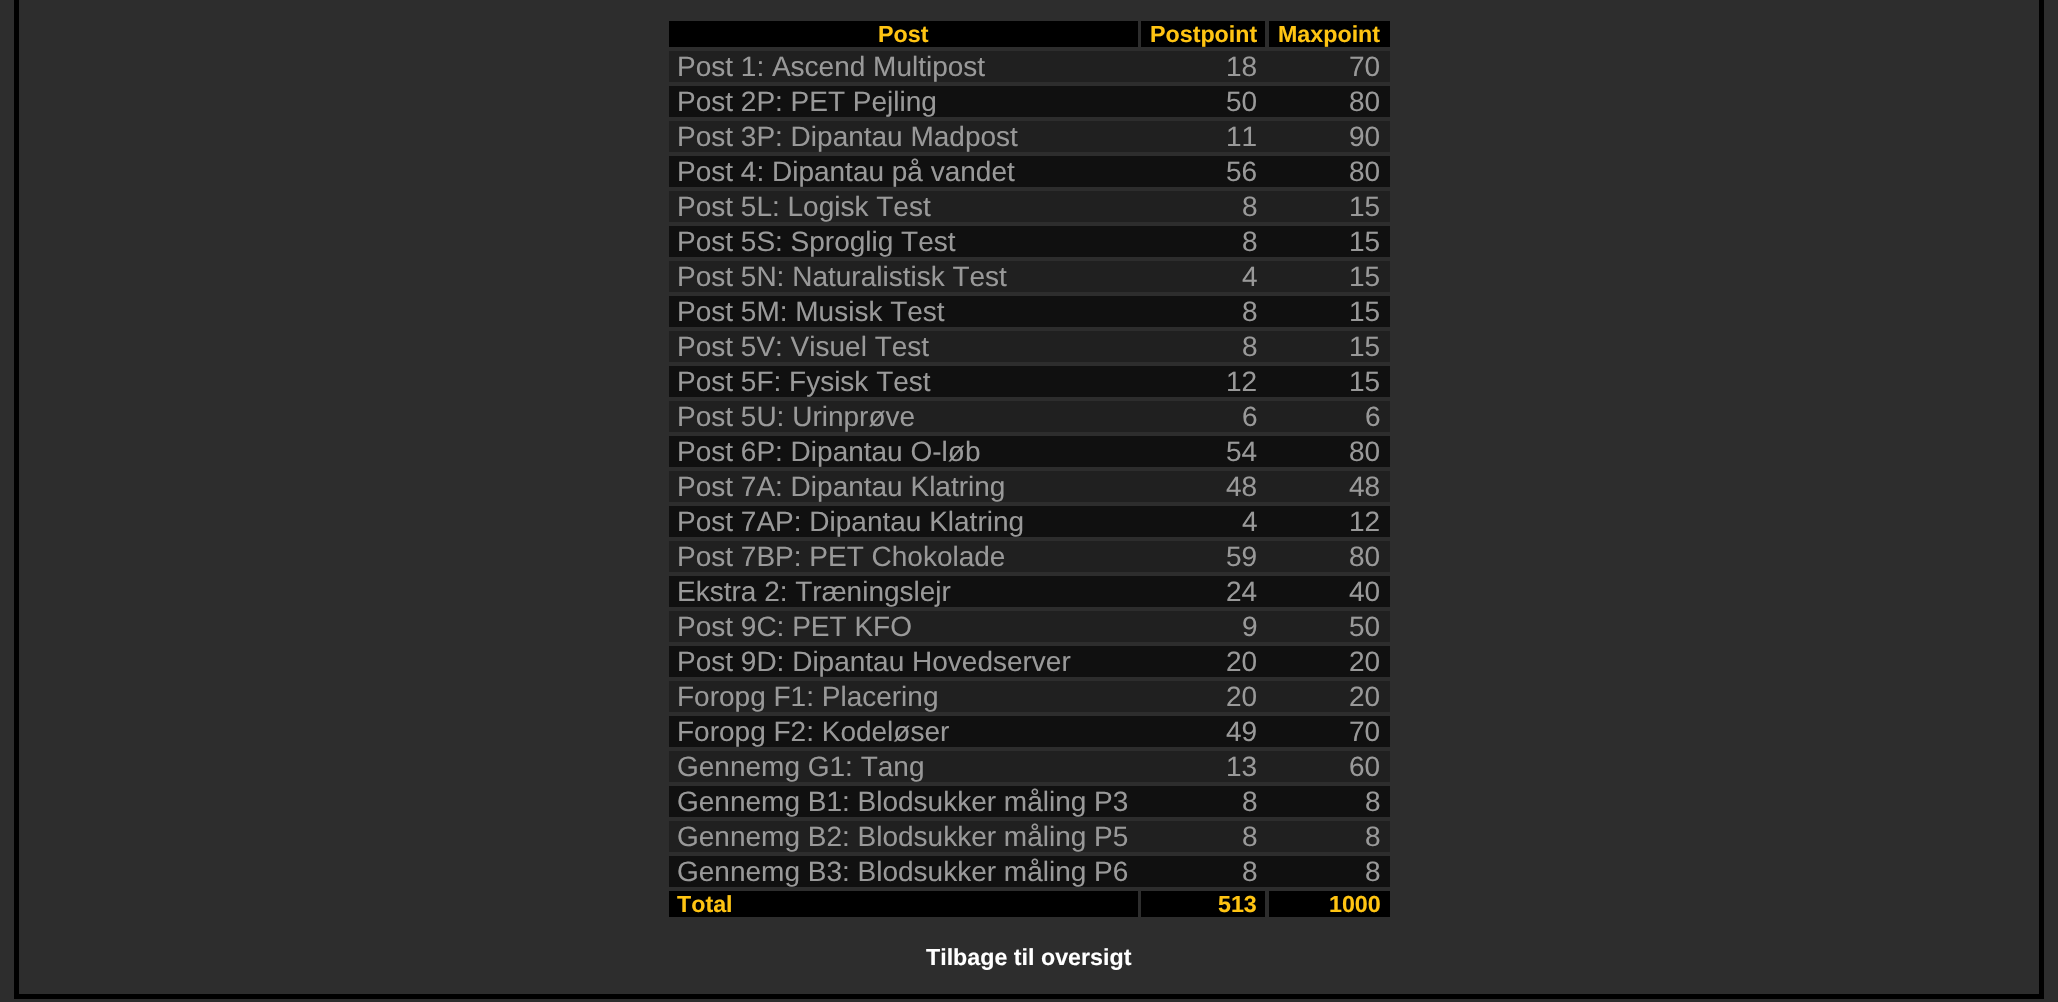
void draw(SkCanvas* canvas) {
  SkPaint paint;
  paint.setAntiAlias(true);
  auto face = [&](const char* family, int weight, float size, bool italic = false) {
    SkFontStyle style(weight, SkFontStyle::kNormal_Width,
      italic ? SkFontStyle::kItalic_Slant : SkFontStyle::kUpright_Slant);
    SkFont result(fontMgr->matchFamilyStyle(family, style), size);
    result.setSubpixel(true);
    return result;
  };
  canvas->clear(0xff2d2d2d);
  paint.setStroke(true);
  paint.setStrokeWidth(5);
  paint.setColor(0xff000000);
  canvas->drawRect(SkRect::MakeXYWH(16.5f, -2.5f, 2025, 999), paint);
  paint.setStroke(false);
  {
    const struct { float x, y, w, h; SkColor color; } items[] = {
      {669, 21, 469, 26, 0xff000000},
      {1141, 21, 124, 26, 0xff000000},
      {1269, 21, 121, 26, 0xff000000},
      {669, 51, 721, 31, 0xff202020},
      {669, 86, 721, 31, 0xff101010},
      {669, 121, 721, 31, 0xff202020},
      {669, 156, 721, 31, 0xff101010},
      {669, 191, 721, 31, 0xff202020},
      {669, 226, 721, 31, 0xff101010},
      {669, 261, 721, 31, 0xff202020},
      {669, 296, 721, 31, 0xff101010},
      {669, 331, 721, 31, 0xff202020},
      {669, 366, 721, 31, 0xff101010},
      {669, 401, 721, 31, 0xff202020},
      {669, 436, 721, 31, 0xff101010},
      {669, 471, 721, 31, 0xff202020},
      {669, 506, 721, 31, 0xff101010},
      {669, 541, 721, 31, 0xff202020},
      {669, 576, 721, 31, 0xff101010},
      {669, 611, 721, 31, 0xff202020},
      {669, 646, 721, 31, 0xff101010},
      {669, 681, 721, 31, 0xff202020},
      {669, 716, 721, 31, 0xff101010},
      {669, 751, 721, 31, 0xff202020},
      {669, 786, 721, 31, 0xff101010},
      {669, 821, 721, 31, 0xff202020},
      {669, 856, 721, 31, 0xff101010},
      {669, 891, 469, 26, 0xff000000},
      {1141, 891, 124, 26, 0xff000000},
      {1269, 891, 121, 26, 0xff000000},
    };
    for (auto [x, y, w, h, color] : items) {
      paint.setColor(color);
      canvas->drawRect(SkRect::MakeXYWH(x, y, w, h), paint);
    }
  }
  auto f0 = face("Liberation Sans", 700, 23.25f);
  paint.setColor(0xffffc412);
  {
    const struct { const char* s; float x, y; } items[] = {
      {"Post", 878, 42},
      {"Postpoint", 1150, 42},
      {"Maxpoint", 1278, 42},
    };
    for (auto [s, x, y] : items) {
      canvas->drawString(s, x, y, f0, paint);
    }
  }
  auto f1 = face("Liberation Sans", 400, 28);
  paint.setColor(0xff999999);
  {
    const struct { const char* s; float x, y; } items[] = {
      {"Post 1: Ascend Multipost", 677, 76},
      {"18", 1226, 76},
      {"70", 1349, 76},
      {"Post 2P: PET Pejling", 677, 111},
      {"50", 1226, 111},
      {"80", 1349, 111},
      {"Post 3P: Dipantau Madpost", 677, 146},
      {"11", 1226, 146},
      {"90", 1349, 146},
      {"Post 4: Dipantau på vandet", 677, 181},
      {"56", 1226, 181},
      {"80", 1349, 181},
      {"Post 5L: Logisk Test", 677, 216},
      {"8", 1242, 216},
      {"15", 1349, 216},
      {"Post 5S: Sproglig Test", 677, 251},
      {"8", 1242, 251},
      {"15", 1349, 251},
      {"Post 5N: Naturalistisk Test", 677, 286},
      {"4", 1242, 286},
      {"15", 1349, 286},
      {"Post 5M: Musisk Test", 677, 321},
      {"8", 1242, 321},
      {"15", 1349, 321},
      {"Post 5V: Visuel Test", 677, 356},
      {"8", 1242, 356},
      {"15", 1349, 356},
      {"Post 5F: Fysisk Test", 677, 391},
      {"12", 1226, 391},
      {"15", 1349, 391},
      {"Post 5U: Urinprøve", 677, 426},
      {"6", 1242, 426},
      {"6", 1365, 426},
      {"Post 6P: Dipantau O-løb", 677, 461},
      {"54", 1226, 461},
      {"80", 1349, 461},
      {"Post 7A: Dipantau Klatring", 677, 496},
      {"48", 1226, 496},
      {"48", 1349, 496},
      {"Post 7AP: Dipantau Klatring", 677, 531},
      {"4", 1242, 531},
      {"12", 1349, 531},
      {"Post 7BP: PET Chokolade", 677, 566},
      {"59", 1226, 566},
      {"80", 1349, 566},
      {"Ekstra 2: Træningslejr", 677, 601},
      {"24", 1226, 601},
      {"40", 1349, 601},
      {"Post 9C: PET KFO", 677, 636},
      {"9", 1242, 636},
      {"50", 1349, 636},
      {"Post 9D: Dipantau Hovedserver", 677, 671},
      {"20", 1226, 671},
      {"20", 1349, 671},
      {"Foropg F1: Placering", 677, 706},
      {"20", 1226, 706},
      {"20", 1349, 706},
      {"Foropg F2: Kodeløser", 677, 741},
      {"49", 1226, 741},
      {"70", 1349, 741},
      {"Gennemg G1: Tang", 677, 776},
      {"13", 1226, 776},
      {"60", 1349, 776},
      {"Gennemg B1: Blodsukker måling P3", 677, 811},
      {"8", 1242, 811},
      {"8", 1365, 811},
      {"Gennemg B2: Blodsukker måling P5", 677, 846},
      {"8", 1242, 846},
      {"8", 1365, 846},
      {"Gennemg B3: Blodsukker måling P6", 677, 881},
      {"8", 1242, 881},
      {"8", 1365, 881},
    };
    for (auto [s, x, y] : items) {
      canvas->drawString(s, x, y, f1, paint);
    }
  }
  paint.setColor(0xffffc412);
  {
    const struct { const char* s; float x, y; } items[] = {
      {"Total", 677, 912},
      {"513", 1218, 912},
      {"1000", 1329, 912},
    };
    for (auto [s, x, y] : items) {
      canvas->drawString(s, x, y, f0, paint);
    }
  }
  paint.setColor(0xffffffff);
  canvas->drawString("Tilbage til oversigt", 926, 965, f0, paint);
}
